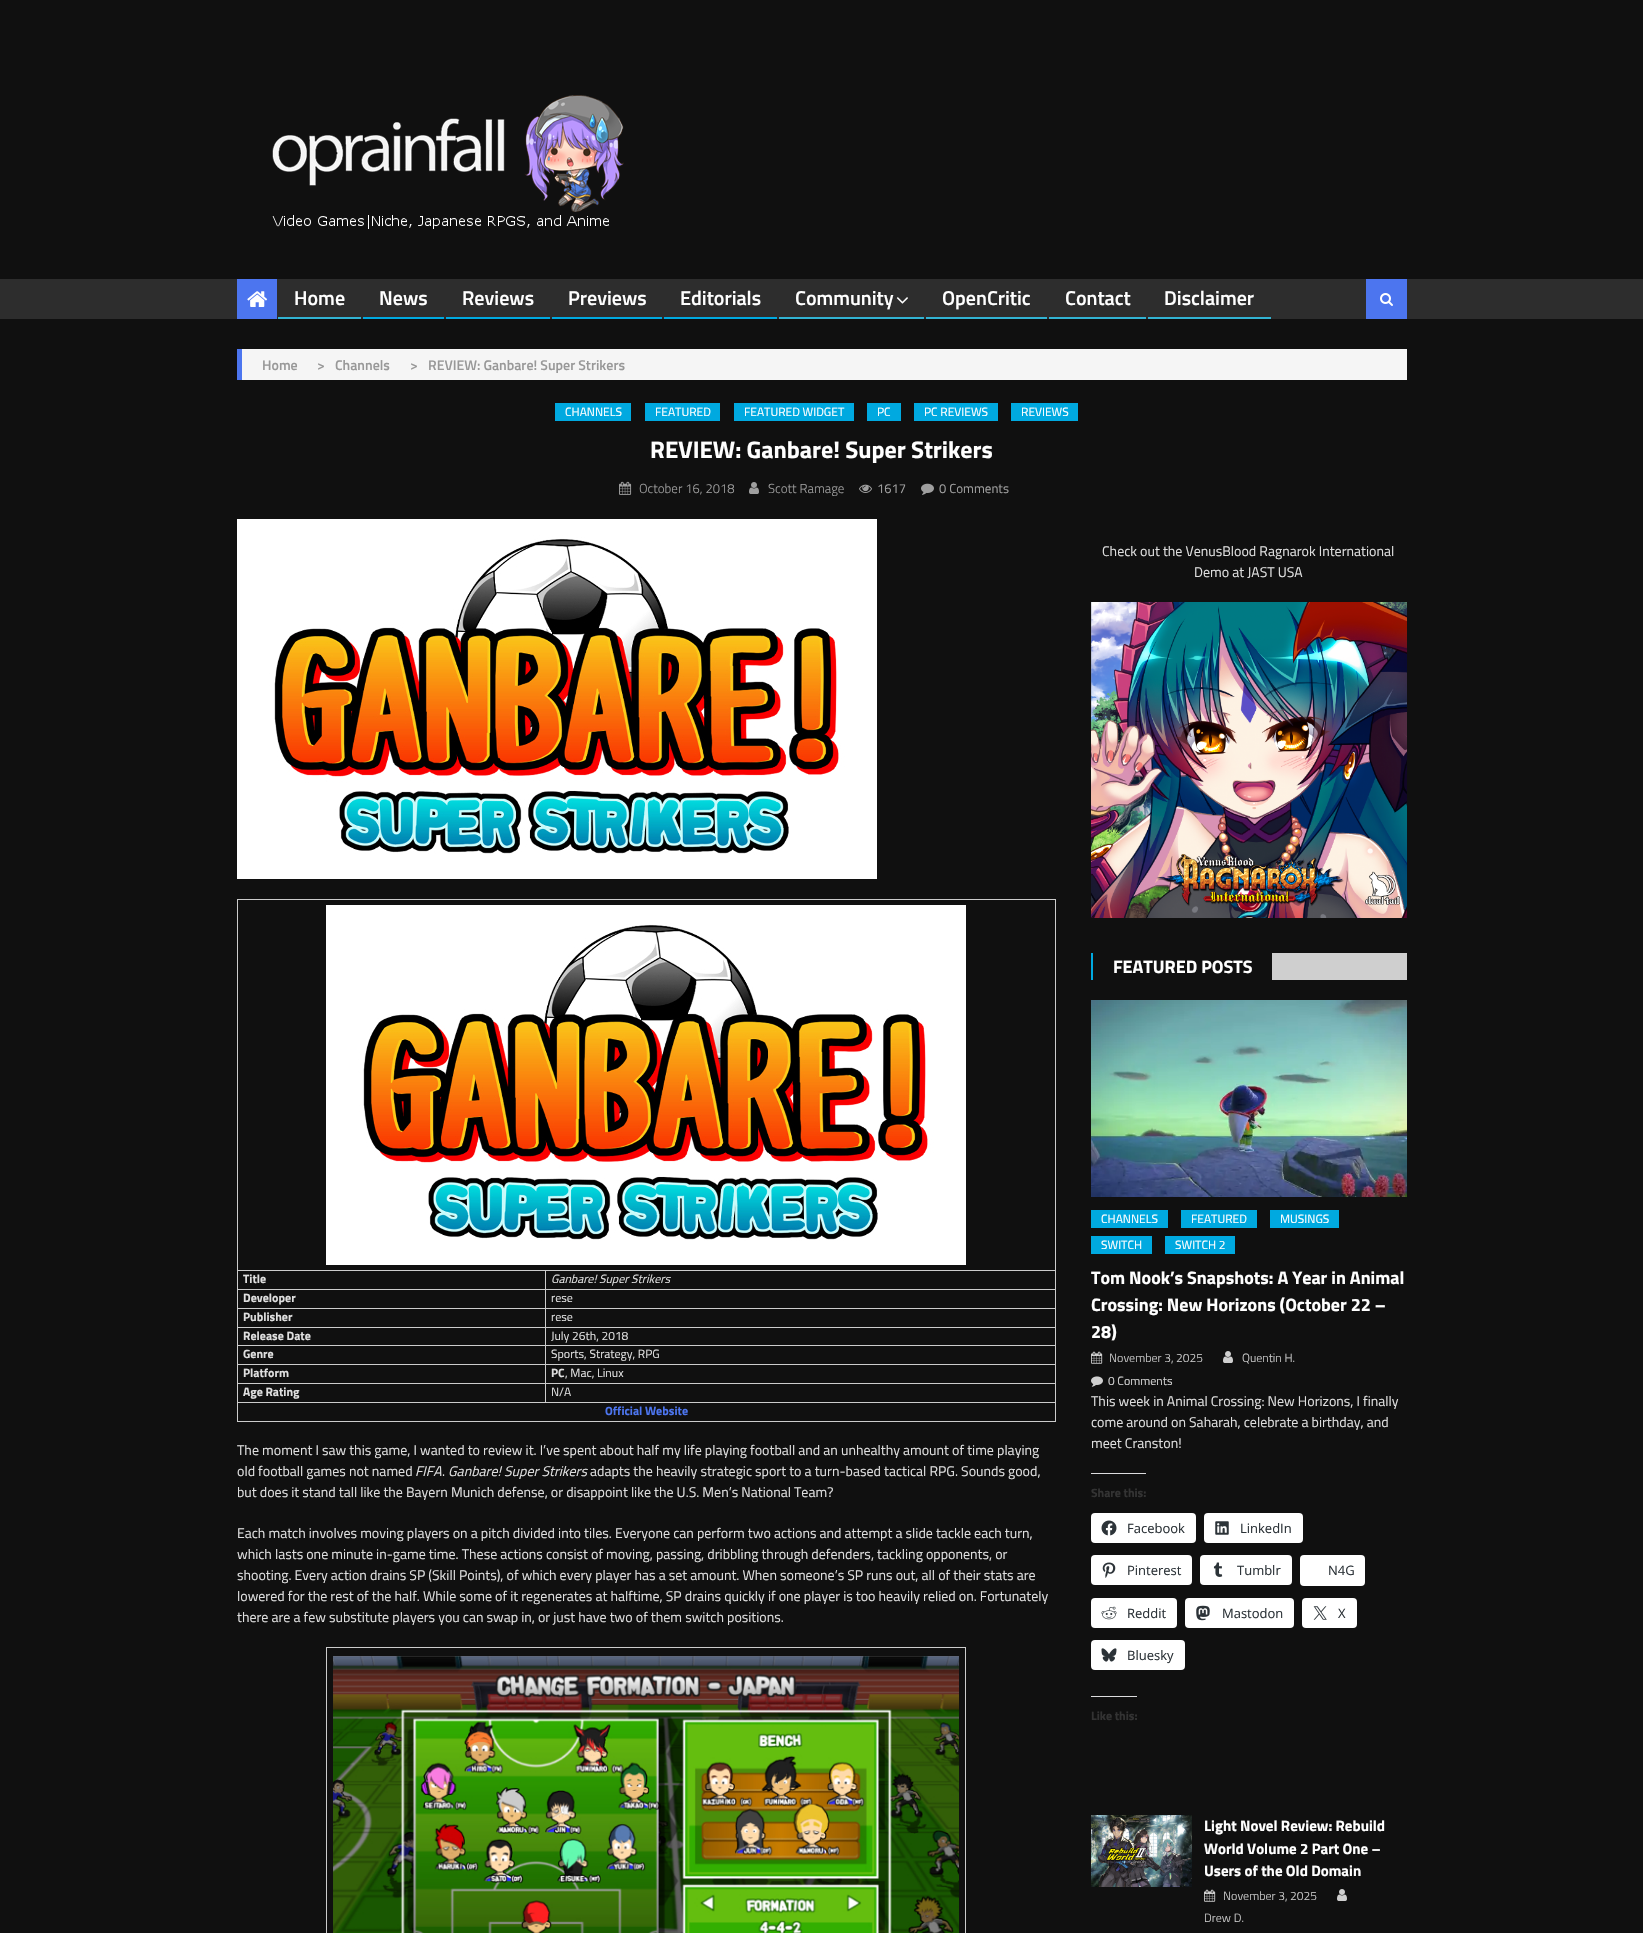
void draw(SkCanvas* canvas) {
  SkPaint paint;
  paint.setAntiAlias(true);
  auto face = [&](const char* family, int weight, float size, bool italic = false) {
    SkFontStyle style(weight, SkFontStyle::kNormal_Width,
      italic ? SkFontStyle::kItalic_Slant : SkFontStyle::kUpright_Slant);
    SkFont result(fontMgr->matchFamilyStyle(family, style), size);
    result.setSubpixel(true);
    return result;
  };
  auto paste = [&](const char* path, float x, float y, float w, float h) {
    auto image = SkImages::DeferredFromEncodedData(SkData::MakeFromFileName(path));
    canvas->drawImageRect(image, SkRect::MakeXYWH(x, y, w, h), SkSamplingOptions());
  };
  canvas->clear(0xff101010);
  paste("img/1.png", 272, 95, 352, 134);
  paint.setColor(0xff2d2d2d);
  canvas->drawRect(SkRect::MakeXYWH(0, 279, 1643, 40), paint);
  paint.setColor(0xff4c75ef);
  canvas->drawRect(SkRect::MakeXYWH(237, 279, 40, 40), paint);
  paste("img/2.png", 247, 291, 21, 16);
  {
    const struct { float x, y, w, h; SkColor color; } items[] = {
      {278, 317, 83, 2, 0xff32b3d3},
      {363, 317, 81, 2, 0xff00a9e0},
      {446, 317, 104, 2, 0xff00a9e0},
      {552, 317, 110, 2, 0xff00a9e0},
      {664, 317, 113, 2, 0xff00a9e0},
      {779, 317, 145, 2, 0xff32b3d3},
    };
    for (auto [x, y, w, h, color] : items) {
      paint.setColor(color);
      canvas->drawRect(SkRect::MakeXYWH(x, y, w, h), paint);
    }
  }
  paste("img/3.png", 896, 297, 12, 7);
  {
    const struct { float x, y, w, h; SkColor color; } items[] = {
      {926, 317, 121, 2, 0xff32b3d3},
      {1049, 317, 97, 2, 0xff32b3d3},
      {1148, 317, 123, 2, 0xff32b3d3},
      {1366, 279, 41, 40, 0xff4c75ef},
    };
    for (auto [x, y, w, h, color] : items) {
      paint.setColor(color);
      canvas->drawRect(SkRect::MakeXYWH(x, y, w, h), paint);
    }
  }
  paste("img/4.png", 1380, 293, 13, 13);
  {
    const struct { float x, y, w, h; SkColor color; } items[] = {
      {242, 349, 1165, 31, 0xfff5f5f5},
      {237, 349, 5, 31, 0xff4c75ef},
      {555, 403, 76, 18, 0xff00a9e0},
      {645, 403, 75, 18, 0xff00a9e0},
      {734, 403, 120, 18, 0xff00a9e0},
      {867, 403, 34, 18, 0xff00a9e0},
      {914, 403, 84, 18, 0xff00a9e0},
      {1011, 403, 67, 18, 0xff00a9e0},
    };
    for (auto [x, y, w, h, color] : items) {
      paint.setColor(color);
      canvas->drawRect(SkRect::MakeXYWH(x, y, w, h), paint);
    }
  }
  paste("img/5.png", 619, 481, 13, 14);
  paste("img/6.png", 749, 482, 10, 12);
  paste("img/7.png", 859, 484, 13, 9);
  paste("img/8.png", 921, 483, 13, 12);
  paste("img/9.png", 237, 519, 640, 360);
  {
    const struct { float x, y, w, h; SkColor color; } items[] = {
      {237, 899, 819, 1, 0xffcccccc},
      {545, 1270, 511, 1, 0xffcccccc},
      {545, 1289, 511, 1, 0xffcccccc},
      {545, 1308, 511, 1, 0xffcccccc},
      {545, 1327, 511, 1, 0xffcccccc},
      {545, 1345, 511, 1, 0xffcccccc},
      {545, 1364, 511, 1, 0xffcccccc},
      {545, 1383, 511, 1, 0xffcccccc},
      {237, 1402, 819, 1, 0xffcccccc},
      {1055, 1402, 1, 20, 0xffcccccc},
      {1055, 1383, 1, 20, 0xffcccccc},
      {1055, 1364, 1, 20, 0xffcccccc},
      {1055, 1345, 1, 20, 0xffcccccc},
      {1055, 1327, 1, 19, 0xffcccccc},
      {1055, 1308, 1, 20, 0xffcccccc},
      {1055, 1289, 1, 20, 0xffcccccc},
      {1055, 1270, 1, 20, 0xffcccccc},
      {1055, 899, 1, 372, 0xffcccccc},
      {545, 1383, 1, 20, 0xffcccccc},
      {237, 1383, 309, 1, 0xffcccccc},
      {545, 1364, 1, 20, 0xffcccccc},
      {237, 1364, 309, 1, 0xffcccccc},
      {545, 1345, 1, 20, 0xffcccccc},
      {237, 1345, 309, 1, 0xffcccccc},
      {545, 1327, 1, 19, 0xffcccccc},
      {237, 1327, 309, 1, 0xffcccccc},
      {545, 1308, 1, 20, 0xffcccccc},
      {237, 1308, 309, 1, 0xffcccccc},
      {545, 1289, 1, 20, 0xffcccccc},
      {237, 1289, 309, 1, 0xffcccccc},
      {545, 1270, 1, 20, 0xffcccccc},
      {237, 1270, 309, 1, 0xffcccccc},
      {237, 1421, 819, 1, 0xffcccccc},
      {237, 1402, 1, 20, 0xffcccccc},
      {237, 1383, 1, 20, 0xffcccccc},
      {237, 1364, 1, 20, 0xffcccccc},
      {237, 1345, 1, 20, 0xffcccccc},
      {237, 1327, 1, 19, 0xffcccccc},
      {237, 1308, 1, 20, 0xffcccccc},
      {237, 1289, 1, 20, 0xffcccccc},
      {237, 1270, 1, 20, 0xffcccccc},
      {237, 899, 1, 372, 0xffcccccc},
    };
    for (auto [x, y, w, h, color] : items) {
      paint.setColor(color);
      canvas->drawRect(SkRect::MakeXYWH(x, y, w, h), paint);
    }
  }
  paste("img/9.png", 326, 905, 640, 360);
  paint.setStroke(true);
  paint.setStrokeWidth(1);
  canvas->drawRect(SkRect::MakeXYWH(326.5f, 1647.5f, 639, 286), paint);
  paste("img/10.png", 333, 1656, 626, 277);
  paste("img/11.png", 1091, 602, 316, 316);
  paint.setStroke(false);
  paint.setColor(0xffcfcfcf);
  canvas->drawRect(SkRect::MakeXYWH(1272, 953, 135, 27), paint);
  paint.setColor(0xff00a9e0);
  canvas->drawRect(SkRect::MakeXYWH(1091, 953, 2, 27), paint);
  paste("img/12.png", 1091, 1000, 316, 197);
  {
    const struct { float x, y, w, h; SkColor color; } items[] = {
      {1091, 1210, 77, 18, 0xff00a9e0},
      {1181, 1210, 76, 18, 0xff00a9e0},
      {1270, 1210, 69, 18, 0xff00a9e0},
      {1091, 1236, 61, 18, 0xff00a9e0},
      {1165, 1236, 70, 18, 0xff00a9e0},
    };
    for (auto [x, y, w, h, color] : items) {
      paint.setColor(color);
      canvas->drawRect(SkRect::MakeXYWH(x, y, w, h), paint);
    }
  }
  paste("img/13.png", 1091, 1351, 12, 13);
  paste("img/14.png", 1223, 1351, 10, 12);
  paste("img/15.png", 1091, 1376, 12, 11);
  paint.setColor(0xffdcdcde);
  canvas->drawRect(SkRect::MakeXYWH(1091, 1473, 55, 1), paint);
  paint.setColor(0xffffffff);
  canvas->drawRoundRect(SkRect::MakeXYWH(1091, 1513, 105, 30), 4, 4, paint);
  paste("img/16.png", 1101, 1520, 16, 16);
  canvas->drawRoundRect(SkRect::MakeXYWH(1204, 1513, 99, 30), 4, 4, paint);
  paste("img/17.png", 1215, 1521, 14, 14);
  canvas->drawRoundRect(SkRect::MakeXYWH(1091, 1555, 101, 30), 4, 4, paint);
  paste("img/18.png", 1102, 1562, 14, 16);
  canvas->drawRoundRect(SkRect::MakeXYWH(1200, 1555, 92, 30), 4, 4, paint);
  paste("img/19.png", 1213, 1562, 10, 15);
  canvas->drawRoundRect(SkRect::MakeXYWH(1300, 1555, 65, 31), 4, 4, paint);
  canvas->drawRoundRect(SkRect::MakeXYWH(1091, 1598, 86, 30), 4, 4, paint);
  paste("img/20.png", 1101, 1606, 16, 14);
  canvas->drawRoundRect(SkRect::MakeXYWH(1185, 1598, 109, 30), 4, 4, paint);
  paste("img/21.png", 1196, 1605, 14, 16);
  canvas->drawRoundRect(SkRect::MakeXYWH(1302, 1598, 55, 30), 4, 4, paint);
  paste("img/22.png", 1313, 1606, 14, 14);
  canvas->drawRoundRect(SkRect::MakeXYWH(1091, 1640, 94, 30), 4, 4, paint);
  paste("img/23.png", 1101, 1648, 16, 14);
  paint.setColor(0xffdcdcde);
  canvas->drawRect(SkRect::MakeXYWH(1091, 1696, 46, 1), paint);
  paste("img/24.png", 1091, 1815, 101, 72);
  paste("img/13.png", 1204, 1889, 12, 13);
  paste("img/14.png", 1337, 1889, 10, 12);
  auto f0 = face("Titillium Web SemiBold", 600, 20);
  paint.setColor(0xffffffff);
  {
    const struct { const char* s; float x, y; } items[] = {
      {"Home", 294, 305},
      {"News", 379, 305},
      {"Reviews", 462, 305},
      {"Previews", 568, 305},
      {"Editorials", 680, 305},
      {"Community", 795, 305},
      {"OpenCritic", 942, 305},
      {"Contact", 1065, 305},
      {"Disclaimer", 1164, 305},
    };
    for (auto [s, x, y] : items) {
      canvas->drawString(s, x, y, f0, paint);
    }
  }
  auto f1 = face("Titillium Web SemiBold", 600, 14);
  paint.setColor(0xff989898);
  {
    const struct { const char* s; float x, y; } items[] = {
      {"Home", 262, 370},
      {">", 317, 370},
      {"Channels", 335, 370},
      {">", 410, 370},
      {"REVIEW: Ganbare! Super Strikers", 428, 370},
    };
    for (auto [s, x, y] : items) {
      canvas->drawString(s, x, y, f1, paint);
    }
  }
  auto f2 = face("Titillium Web", 400, 12);
  paint.setColor(0xffffffff);
  {
    const struct { const char* s; float x, y; } items[] = {
      {"CHANNELS", 565, 416},
      {"FEATURED", 655, 416},
      {"FEATURED WIDGET", 744, 416},
      {"PC", 877, 416},
      {"PC REVIEWS", 924, 416},
      {"REVIEWS", 1021, 416},
    };
    for (auto [s, x, y] : items) {
      canvas->drawString(s, x, y, f2, paint);
    }
  }
  auto f3 = face("Titillium Web", 700, 24);
  canvas->drawString("REVIEW: Ganbare! Super Strikers", 650, 458, f3, paint);
  auto f4 = face("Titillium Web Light", 300, 13);
  paint.setColor(0xff9f9f9f);
  canvas->drawString("October 16, 2018", 639, 493, f4, paint);
  canvas->drawString("Scott Ramage", 768, 493, f4, paint);
  auto f5 = face("Titillium Web", 400, 13);
  canvas->drawString("1617", 877, 493, f5, paint);
  canvas->drawString("0 Comments", 939, 493, f5, paint);
  auto f6 = face("Titillium Web", 700, 12);
  paint.setColor(0xffdfdfdf);
  canvas->drawString("Title", 243, 1283, f6, paint);
  auto f7 = face("Titillium Web", 400, 12, true);
  canvas->drawString("Ganbare! Super Strikers", 551, 1283, f7, paint);
  canvas->drawString("Developer", 243, 1302, f6, paint);
  canvas->drawString("rese", 551, 1302, f2, paint);
  canvas->drawString("Publisher", 243, 1321, f6, paint);
  canvas->drawString("rese", 551, 1321, f2, paint);
  canvas->drawString("Release Date", 243, 1340, f6, paint);
  canvas->drawString("July 26th, 2018", 551, 1340, f2, paint);
  canvas->drawString("Genre", 243, 1358, f6, paint);
  canvas->drawString("Sports, Strategy, RPG", 551, 1358, f2, paint);
  canvas->drawString("Platform", 243, 1377, f6, paint);
  canvas->drawString("PC", 551, 1377, f6, paint);
  canvas->drawString(", Mac, Linux", 565, 1377, f2, paint);
  canvas->drawString("Age Rating", 243, 1396, f6, paint);
  canvas->drawString("N/A", 551, 1396, f2, paint);
  paint.setColor(0xff4c75ef);
  canvas->drawString("Official Website", 605, 1415, f6, paint);
  auto f8 = face("Titillium Web", 400, 14);
  paint.setColor(0xffdfdfdf);
  canvas->drawString("The moment I saw this game, I wanted to review it. I’ve spent about half my life playing football and an unhealthy amount of time playing", 237, 1455, f8, paint);
  canvas->drawString("old football games not named", 237, 1476, f8, paint);
  auto f9 = face("Titillium Web", 400, 14, true);
  canvas->drawString("FIFA", 415, 1476, f9, paint);
  canvas->drawString(".", 442, 1476, f8, paint);
  canvas->drawString("Ganbare! Super Strikers", 448, 1476, f9, paint);
  {
    const struct { const char* s; float x, y; } items[] = {
      {"adapts the heavily strategic sport to a turn-based tactical RPG. Sounds good,", 590, 1476},
      {"but does it stand tall like the Bayern Munich defense, or disappoint like the U.S. Men’s National Team?", 237, 1497},
      {"Each match involves moving players on a pitch divided into tiles. Everyone can perform two actions and attempt a slide tackle each turn,", 237, 1538},
      {"which lasts one minute in-game time. These actions consist of moving, passing, dribbling through defenders, tackling opponents, or", 237, 1559},
      {"shooting. Every action drains SP (Skill Points), of which every player has a set amount. When someone’s SP runs out, all of their stats are", 237, 1580},
      {"lowered for the rest of the half. While some of it regenerates at halftime, SP drains quickly if one player is too heavily relied on. Fortunately", 237, 1601},
      {"there are a few substitute players you can swap in, or just have two of them switch positions.", 237, 1622},
      {"Check out the VenusBlood Ragnarok International", 1102, 556},
      {"Demo at JAST USA", 1194, 577},
    };
    for (auto [s, x, y] : items) {
      canvas->drawString(s, x, y, f8, paint);
    }
  }
  auto f10 = face("Titillium Web", 700, 18);
  paint.setColor(0xffffffff);
  canvas->drawString("FEATURED POSTS", 1113, 973, f10, paint);
  {
    const struct { const char* s; float x, y; } items[] = {
      {"CHANNELS", 1101, 1223},
      {"FEATURED", 1191, 1223},
      {"MUSINGS", 1280, 1223},
      {"SWITCH", 1101, 1249},
      {"SWITCH 2", 1175, 1249},
    };
    for (auto [s, x, y] : items) {
      canvas->drawString(s, x, y, f2, paint);
    }
  }
  {
    const struct { const char* s; float x, y; } items[] = {
      {"Tom Nook’s Snapshots: A Year in Animal", 1091, 1284},
      {"Crossing: New Horizons (October 22 –", 1091, 1311},
      {"28)", 1091, 1338},
    };
    for (auto [s, x, y] : items) {
      canvas->drawString(s, x, y, f10, paint);
    }
  }
  auto f11 = face("Titillium Web Light", 300, 12);
  paint.setColor(0xffcfcfcf);
  canvas->drawString("November 3, 2025", 1109, 1362, f11, paint);
  canvas->drawString("Quentin H.", 1242, 1362, f11, paint);
  canvas->drawString("0 Comments", 1108, 1385, f2, paint);
  paint.setColor(0xffdfdfdf);
  {
    const struct { const char* s; float x, y; } items[] = {
      {"This week in Animal Crossing: New Horizons, I finally", 1091, 1406},
      {"come around on Saharah, celebrate a birthday, and", 1091, 1427},
      {"meet Cranston!", 1091, 1448},
    };
    for (auto [s, x, y] : items) {
      canvas->drawString(s, x, y, f8, paint);
    }
  }
  paint.setColor(0xff333333);
  canvas->drawString("Share this:", 1091, 1497, f6, paint);
  auto f12 = face("Open Sans", 400, 13);
  paint.setColor(0xff2c3338);
  {
    const struct { const char* s; float x, y; } items[] = {
      {"Facebook", 1127, 1533},
      {"LinkedIn", 1240, 1533},
      {"Pinterest", 1127, 1575},
      {"Tumblr", 1237, 1575},
      {"N4G", 1328, 1575},
      {"Reddit", 1127, 1618},
      {"Mastodon", 1222, 1618},
      {"X", 1338, 1618},
      {"Bluesky", 1127, 1660},
    };
    for (auto [s, x, y] : items) {
      canvas->drawString(s, x, y, f12, paint);
    }
  }
  paint.setColor(0xff333333);
  canvas->drawString("Like this:", 1091, 1720, f6, paint);
  auto f13 = face("Titillium Web", 700, 15);
  paint.setColor(0xffffffff);
  {
    const struct { const char* s; float x, y; } items[] = {
      {"Light Novel Review: Rebuild", 1204, 1831},
      {"World Volume 2 Part One –", 1204, 1854},
      {"Users of the Old Domain", 1204, 1876},
    };
    for (auto [s, x, y] : items) {
      canvas->drawString(s, x, y, f13, paint);
    }
  }
  paint.setColor(0xffcfcfcf);
  canvas->drawString("November 3, 2025", 1223, 1900, f11, paint);
  canvas->drawString("Drew D.", 1204, 1922, f11, paint);
}
